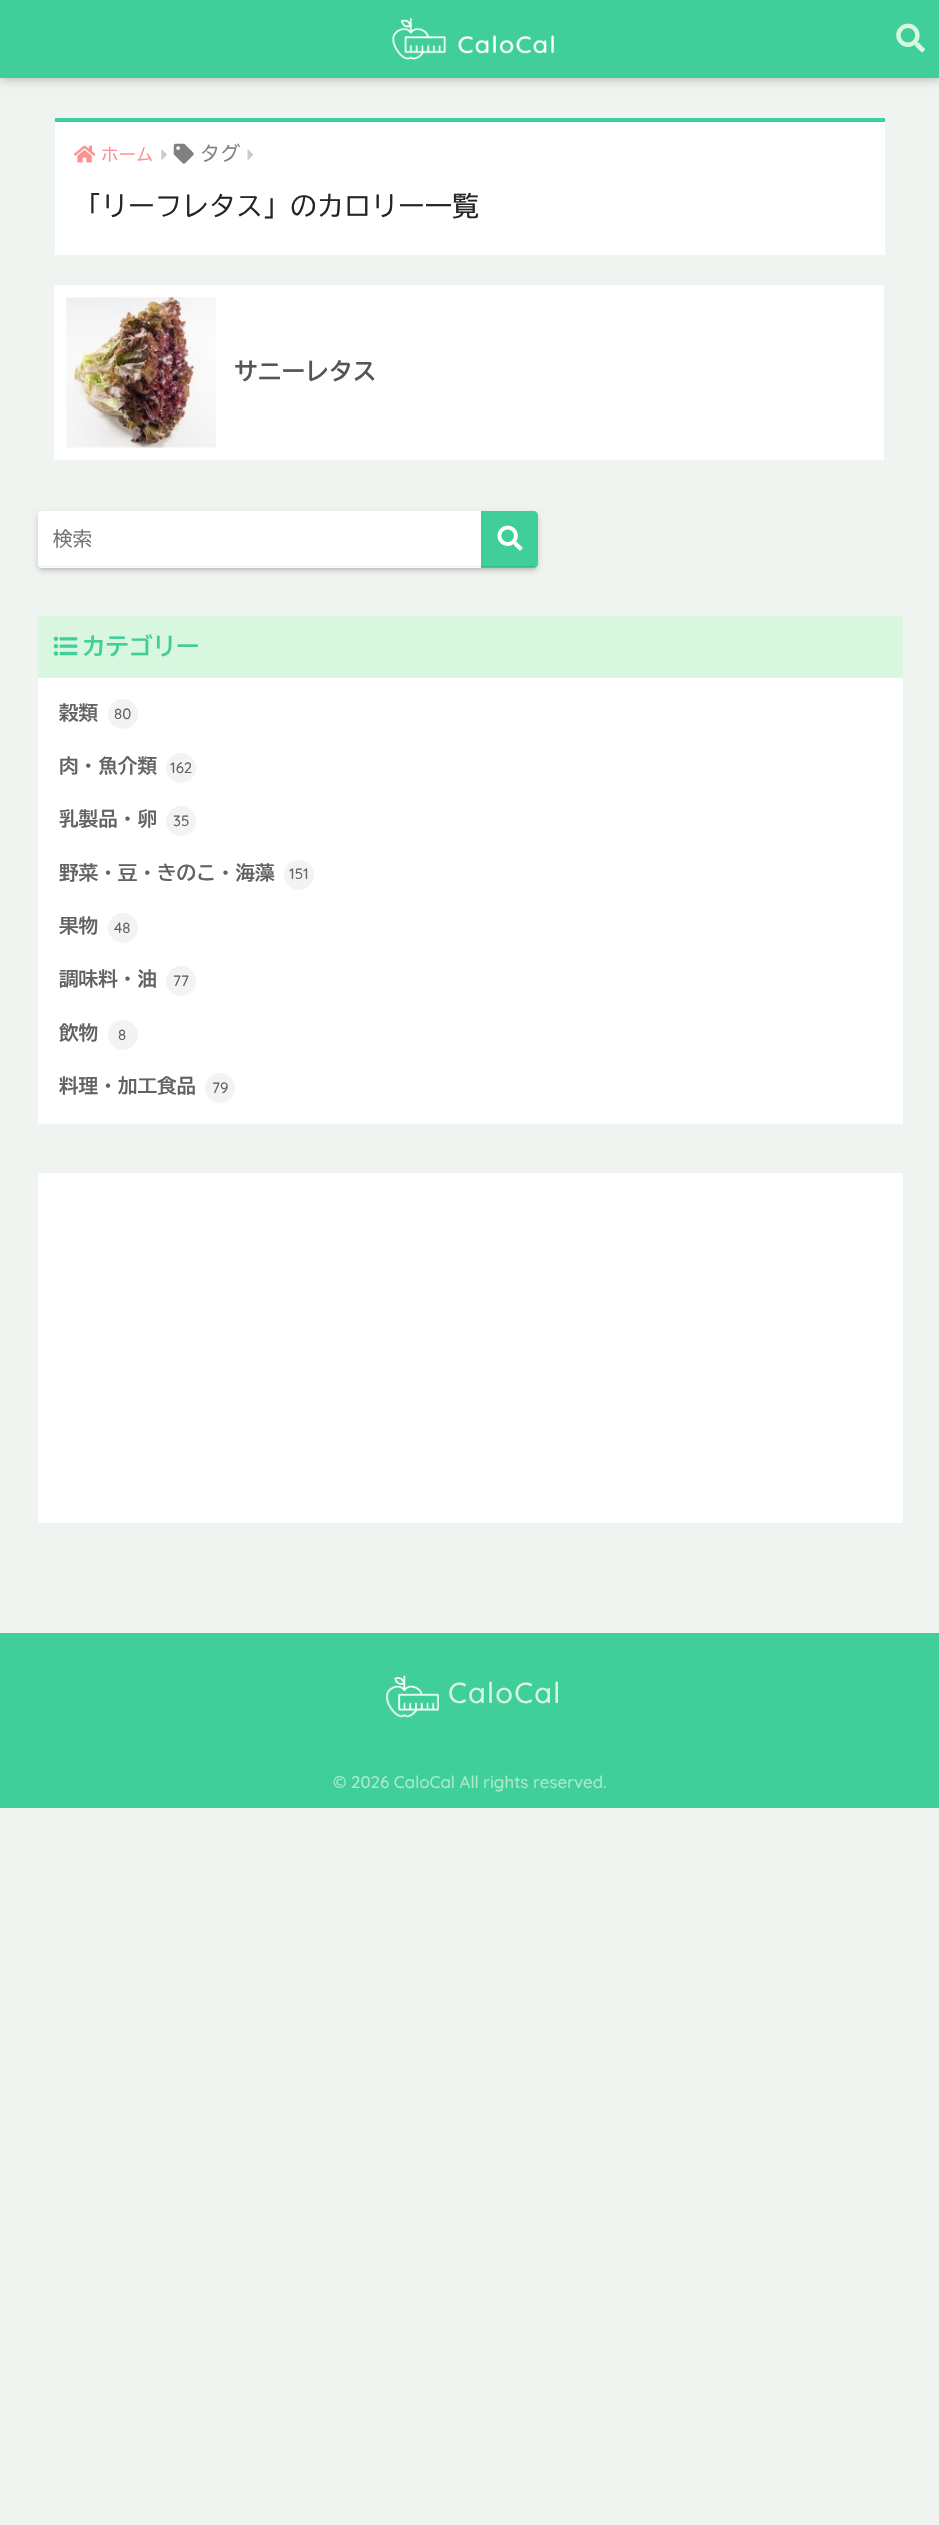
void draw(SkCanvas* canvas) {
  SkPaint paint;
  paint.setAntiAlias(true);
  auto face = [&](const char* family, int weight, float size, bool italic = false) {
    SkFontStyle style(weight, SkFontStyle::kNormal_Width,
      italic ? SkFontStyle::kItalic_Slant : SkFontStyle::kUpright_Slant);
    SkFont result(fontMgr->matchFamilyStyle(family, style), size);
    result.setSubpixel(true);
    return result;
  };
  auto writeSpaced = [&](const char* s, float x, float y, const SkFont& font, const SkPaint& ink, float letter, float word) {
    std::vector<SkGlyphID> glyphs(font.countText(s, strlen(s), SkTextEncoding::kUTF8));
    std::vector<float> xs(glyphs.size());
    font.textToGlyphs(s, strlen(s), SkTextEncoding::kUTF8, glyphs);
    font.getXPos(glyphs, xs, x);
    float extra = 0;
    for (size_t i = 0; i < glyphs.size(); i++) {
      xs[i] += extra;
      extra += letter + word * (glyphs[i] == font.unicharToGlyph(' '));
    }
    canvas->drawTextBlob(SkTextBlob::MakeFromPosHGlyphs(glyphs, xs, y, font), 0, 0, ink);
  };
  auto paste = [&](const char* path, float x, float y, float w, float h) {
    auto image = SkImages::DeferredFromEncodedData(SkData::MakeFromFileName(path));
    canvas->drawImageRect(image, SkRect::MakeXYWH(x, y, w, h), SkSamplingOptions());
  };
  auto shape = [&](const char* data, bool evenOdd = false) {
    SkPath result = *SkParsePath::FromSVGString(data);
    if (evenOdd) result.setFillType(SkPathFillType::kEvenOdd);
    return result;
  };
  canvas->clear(0xffeff4f0);
  paint.setColor(0x2e000000);
  paint.setMaskFilter(SkMaskFilter::MakeBlur(kNormal_SkBlurStyle, 4));
  canvas->drawRect(SkRect::MakeXYWH(0, 4, 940, 77), paint);
  paint.setMaskFilter(nullptr);
  paint.setColor(0xff40ce9a);
  canvas->drawRect(SkRect::MakeXYWH(0, 0, 939, 78), paint);
  paste("img/1.png", 392, 17, 162, 43);
  paste("img/2.png", 896, 23, 29, 30);
  paint.setColor(0xffffffff);
  canvas->drawRect(SkRect::MakeXYWH(55, 122, 830, 133), paint);
  paint.setColor(0xff40ce9a);
  canvas->drawRect(SkRect::MakeXYWH(55, 118, 830, 4), paint);
  paste("img/3.png", 73, 145, 23, 18);
  paste("img/4.png", 161, 149, 6, 11);
  paste("img/5.png", 173, 143, 21, 21);
  paste("img/6.png", 247, 149, 7, 11);
  paint.setColor(0xffffffff);
  canvas->drawRect(SkRect::MakeXYWH(54, 285, 830, 175), paint);
  paste("img/7.png", 66, 297, 150, 151);
  paint.setColor(0x26000000);
  paint.setMaskFilter(SkMaskFilter::MakeBlur(kNormal_SkBlurStyle, 2));
  canvas->drawRoundRect(SkRect::MakeXYWH(40, 518, 495, 51), 1, 1, paint);
  paint.setMaskFilter(nullptr);
  paint.setMaskFilter(SkMaskFilter::MakeBlur(kNormal_SkBlurStyle, 3));
  canvas->drawRoundRect(SkRect::MakeXYWH(38, 514, 500, 56), 4, 4, paint);
  paint.setMaskFilter(nullptr);
  paint.setColor(0xffffffff);
  canvas->drawRoundRect(SkRect::MakeXYWH(38, 511, 500, 57), 4, 4, paint);
  paint.setColor(0xffefefef);
  canvas->drawRect(SkRect::MakeXYWH(40, 566, 441, 1), paint);
  paint.setColor(0xff40ce9a);
  canvas->drawPath(shape("M481 511H534C536 511 538 513 538 515V564C538 566 536 568 534 568H481Z"), paint);
  paint.setColor(0xff3ab98b);
  canvas->drawRect(SkRect::MakeXYWH(481, 566, 55, 1), paint);
  paste("img/8.png", 497, 525, 26, 26);
  paint.setColor(0xffffffff);
  canvas->drawRect(SkRect::MakeXYWH(38, 678, 865, 446), paint);
  paint.setColor(0xffd9f7de);
  canvas->drawRect(SkRect::MakeXYWH(38, 616, 865, 62), paint);
  paste("img/9.png", 53, 636, 25, 20);
  paint.setColor(0xfff3f3f3);
  canvas->drawCircle(123, 714, 15, paint);
  canvas->drawCircle(181, 768, 15, paint);
  canvas->drawCircle(181, 821, 15, paint);
  canvas->drawCircle(299, 875, 15, paint);
  canvas->drawCircle(123, 928, 15, paint);
  canvas->drawCircle(181, 981, 15, paint);
  canvas->drawCircle(123, 1035, 15, paint);
  canvas->drawCircle(220, 1088, 15, paint);
  paint.setColor(0xffffffff);
  canvas->drawRect(SkRect::MakeXYWH(38, 1173, 865, 350), paint);
  paint.setColor(0xff40ce9a);
  canvas->drawRect(SkRect::MakeXYWH(0, 1633, 939, 175), paint);
  paste("img/10.png", 386, 1675, 53, 43);
  auto f0 = face("BIZ UDGothic", 400, 17.5f);
  paint.setColor(0xffff9090);
  canvas->drawString("ホーム", 101, 161, f0, paint);
  auto f1 = face("BIZ UDGothic", 400, 20);
  paint.setColor(0xff808080);
  canvas->drawString("タグ", 200, 161, f1, paint);
  auto f2 = face("BIZ UDGothic", 400, 27);
  paint.setColor(0xff252525);
  canvas->drawString("「リーフレタス」のカロリー一覧", 74, 216, f2, paint);
  auto f3 = face("BIZ UDGothic", 700, 23.75f);
  paint.setColor(0xff555555);
  canvas->drawString("サニーレタス", 234, 380, f3, paint);
  auto f4 = face("BIZ UDGothic", 400, 19.6f);
  paint.setColor(0xff757575);
  canvas->drawString("検索", 53, 546, f4, paint);
  auto f5 = face("BIZ UDGothic", 700, 23.5f);
  paint.setColor(0xff40ce9a);
  canvas->drawString("カテゴリー", 82, 655, f5, paint);
  auto f6 = face("BIZ UDGothic", 700, 19.6f);
  paint.setColor(0xff626262);
  canvas->drawString("穀類", 59, 720, f6, paint);
  auto f7 = face("Quicksand", 500, 15);
  canvas->drawString("80", 114, 719, f7, paint);
  canvas->drawString("肉・魚介類", 59, 773, f6, paint);
  canvas->drawString("162", 170, 773, f7, paint);
  canvas->drawString("乳製品・卵", 59, 826, f6, paint);
  canvas->drawString("35", 173, 826, f7, paint);
  canvas->drawString("野菜・豆・きのこ・海藻", 59, 880, f6, paint);
  canvas->drawString("151", 289, 879, f7, paint);
  canvas->drawString("果物", 59, 933, f6, paint);
  canvas->drawString("48", 114, 933, f7, paint);
  canvas->drawString("調味料・油", 59, 986, f6, paint);
  canvas->drawString("77", 173, 986, f7, paint);
  canvas->drawString("飲物", 59, 1040, f6, paint);
  canvas->drawString("8", 118, 1040, f7, paint);
  canvas->drawString("料理・加工食品", 59, 1093, f6, paint);
  canvas->drawString("79", 212, 1093, f7, paint);
  auto f8 = face("Quicksand", 500, 29);
  paint.setColor(0xffd9f7de);
  writeSpaced("CaloCal", 448, 1703, f8, paint, 1.25f, 0);
  auto f9 = face("Quicksand", 500, 16.9f);
  paint.setColor(0xffabebca);
  canvas->drawString("© 2026 CaloCal All rights reserved.", 333, 1788, f9, paint);
}
